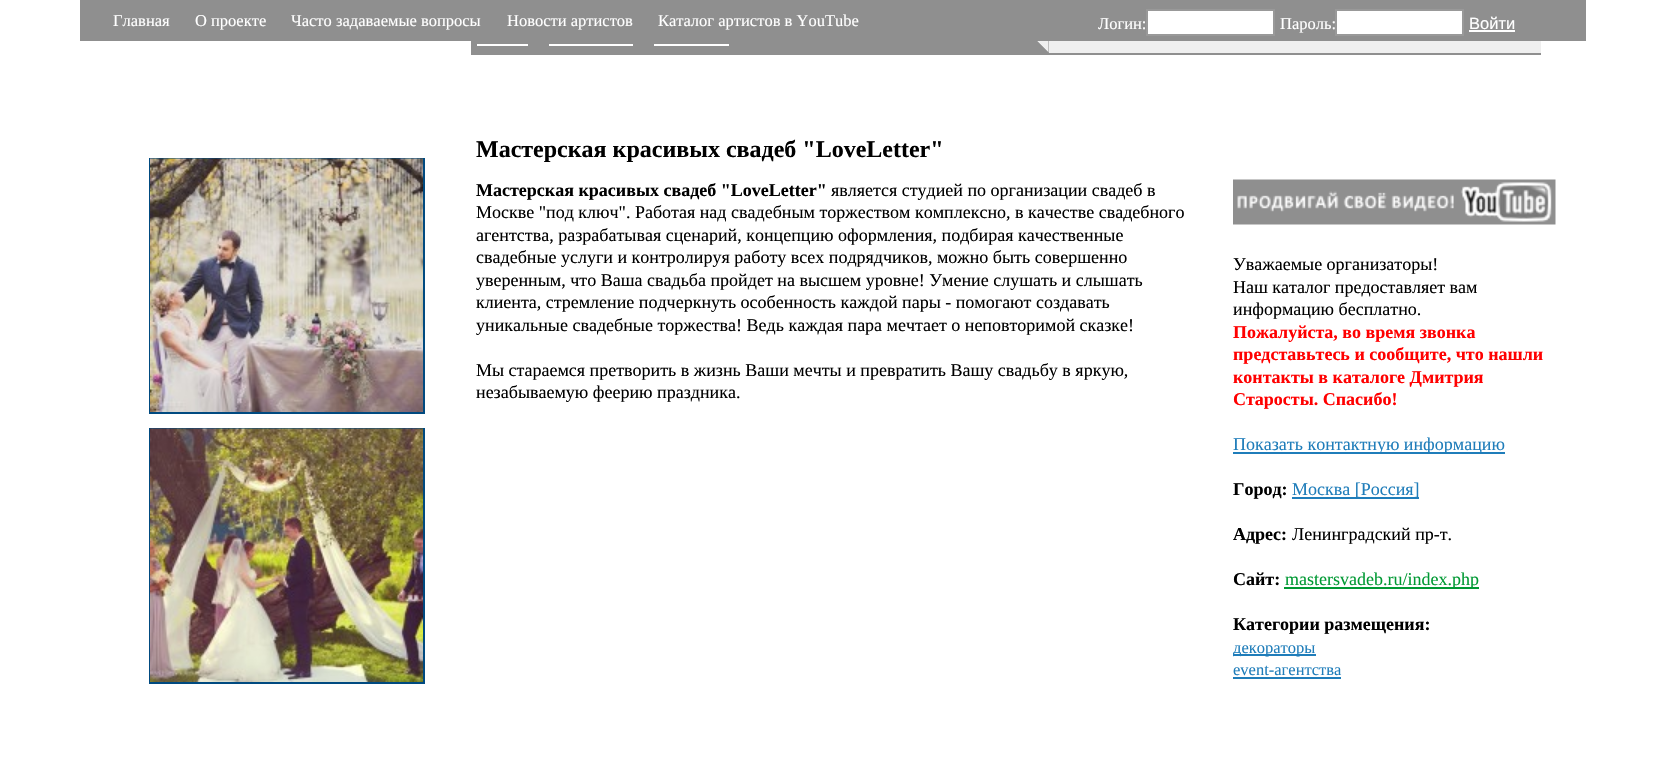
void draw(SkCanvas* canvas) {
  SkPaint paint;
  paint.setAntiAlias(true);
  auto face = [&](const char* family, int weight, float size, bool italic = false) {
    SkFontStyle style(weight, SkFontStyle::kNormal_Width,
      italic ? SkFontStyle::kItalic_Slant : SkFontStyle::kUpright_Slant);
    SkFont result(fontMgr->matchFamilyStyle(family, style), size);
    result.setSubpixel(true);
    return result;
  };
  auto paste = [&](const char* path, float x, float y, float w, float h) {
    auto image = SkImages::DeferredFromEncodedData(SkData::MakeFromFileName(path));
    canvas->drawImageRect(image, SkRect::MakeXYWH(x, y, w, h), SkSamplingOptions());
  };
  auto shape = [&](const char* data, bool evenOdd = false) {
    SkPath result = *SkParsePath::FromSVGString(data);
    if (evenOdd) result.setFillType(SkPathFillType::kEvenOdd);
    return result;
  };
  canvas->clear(0xffffffff);
  paint.setColor(0xff8f8f8f);
  canvas->drawRect(SkRect::MakeXYWH(729, 41, 320, 12), paint);
  paint.setColor(0xffefefef);
  canvas->drawPath(shape("M1048.5 22.5V52.5L1018.5 22.5Z"), paint);
  paint.setColor(0xff8f8f8f);
  canvas->drawPath(shape("M1048 52H744V22H1018Z"), paint);
  canvas->drawRect(SkRect::MakeXYWH(80, 0, 1506, 41), paint);
  paint.setColor(0xffffffff);
  canvas->drawRect(SkRect::MakeXYWH(1147, 10, 127, 25), paint);
  paint.setStroke(true);
  paint.setStrokeWidth(2);
  paint.setColor(0xff999999);
  canvas->drawRect(SkRect::MakeXYWH(1147, 10, 127, 25), paint);
  paint.setStroke(false);
  paint.setColor(0xffffffff);
  canvas->drawRect(SkRect::MakeXYWH(1336, 10, 127, 25), paint);
  paint.setStroke(true);
  paint.setColor(0xff999999);
  canvas->drawRect(SkRect::MakeXYWH(1336, 10, 127, 25), paint);
  paint.setStroke(false);
  {
    const struct { float x, y, w, h; SkColor color; } items[] = {
      {1469, 30, 46, 2, 0xffffffff},
      {1049, 41, 492, 12, 0xffefefef},
      {471, 53, 1070, 2, 0xff8f8f8f},
      {471, 41, 57, 12, 0xff8f8f8f},
      {477, 44, 51, 2, 0xffffffff},
      {528, 41, 105, 12, 0xff8f8f8f},
      {549, 44, 84, 2, 0xffffffff},
      {633, 41, 96, 12, 0xff8f8f8f},
      {654, 44, 75, 2, 0xffffffff},
    };
    for (auto [x, y, w, h, color] : items) {
      paint.setColor(color);
      canvas->drawRect(SkRect::MakeXYWH(x, y, w, h), paint);
    }
  }
  paint.setStroke(true);
  paint.setColor(0xff004a80);
  canvas->drawRect(SkRect::MakeXYWH(150, 159, 274, 254), paint);
  paste("img/1.png", 150, 158, 273, 254);
  canvas->drawRect(SkRect::MakeXYWH(150, 429, 274, 254), paint);
  paste("img/2.png", 150, 428, 273, 254);
  paste("img/3.png", 1233, 179, 323, 46);
  paint.setStroke(false);
  {
    const struct { float x, y, w, h; SkColor color; } items[] = {
      {1233, 452, 272, 2, 0xff1f7dba},
      {1292, 497, 127, 2, 0xff1f7dba},
      {1284, 587, 195, 2, 0xff009933},
      {1233, 654, 83, 2, 0xff1f7dba},
      {1233, 677, 108, 2, 0xff1f7dba},
    };
    for (auto [x, y, w, h, color] : items) {
      paint.setColor(color);
      canvas->drawRect(SkRect::MakeXYWH(x, y, w, h), paint);
    }
  }
  auto f0 = face("Liberation Serif", 400, 16.5f);
  paint.setColor(0xffffffff);
  {
    const struct { const char* s; float x, y; } items[] = {
      {"Главная", 113, 26},
      {"О проекте", 195, 26},
      {"Часто задаваемые вопросы", 291, 26},
      {"Новости артистов", 507, 26},
      {"Каталог артистов в YouTube", 658, 26},
      {"Логин:", 1098, 29},
      {"Пароль:", 1280, 29},
    };
    for (auto [s, x, y] : items) {
      canvas->drawString(s, x, y, f0, paint);
    }
  }
  auto f1 = face("Liberation Sans", 400, 16.5f);
  canvas->drawString("Войти", 1469, 29, f1, paint);
  auto f2 = face("Liberation Serif", 700, 24);
  paint.setColor(0xff000000);
  canvas->drawString("Мастерская красивых свадеб \"LoveLetter\"", 476, 157, f2, paint);
  auto f3 = face("Liberation Serif", 700, 18);
  canvas->drawString("Мастерская красивых свадеб \"LoveLetter\"", 476, 196, f3, paint);
  auto f4 = face("Liberation Serif", 400, 18);
  {
    const struct { const char* s; float x, y; } items[] = {
      {"является студией по организации свадеб в", 831, 196},
      {"Москве \"под ключ\". Работая над свадебным торжеством комплексно, в качестве свадебного", 476, 218},
      {"агентства, разрабатывая сценарий, концепцию оформления, подбирая качественные", 476, 241},
      {"свадебные услуги и контролируя работу всех подрядчиков, можно быть совершенно", 476, 263},
      {"уверенным, что Ваша свадьба пройдет на высшем уровне! Умение слушать и слышать", 476, 286},
      {"клиента, стремление подчеркнуть особенность каждой пары - помогают создавать", 476, 308},
      {"уникальные свадебные торжества! Ведь каждая пара мечтает о неповторимой сказке!", 476, 331},
      {"Мы стараемся претворить в жизнь Ваши мечты и превратить Вашу свадьбу в яркую,", 476, 376},
      {"незабываемую феерию праздника.", 476, 398},
      {"Уважаемые организаторы!", 1233, 270},
      {"Наш каталог предоставляет вам", 1233, 293},
      {"информацию бесплатно.", 1233, 315},
    };
    for (auto [s, x, y] : items) {
      canvas->drawString(s, x, y, f4, paint);
    }
  }
  paint.setColor(0xffff0000);
  {
    const struct { const char* s; float x, y; } items[] = {
      {"Пожалуйста, во время звонка", 1233, 338},
      {"представьтесь и сообщите, что нашли", 1233, 360},
      {"контакты в каталоге Дмитрия", 1233, 383},
      {"Старосты. Спасибо!", 1233, 405},
    };
    for (auto [s, x, y] : items) {
      canvas->drawString(s, x, y, f3, paint);
    }
  }
  paint.setColor(0xff1f7dba);
  canvas->drawString("Показать контактную информацию", 1233, 450, f4, paint);
  paint.setColor(0xff000000);
  canvas->drawString("Город:", 1233, 495, f3, paint);
  paint.setColor(0xff1f7dba);
  canvas->drawString("Москва [Россия]", 1292, 495, f4, paint);
  paint.setColor(0xff000000);
  canvas->drawString("Адрес:", 1233, 540, f3, paint);
  canvas->drawString("Ленинградский пр-т.", 1292, 540, f4, paint);
  canvas->drawString("Сайт:", 1233, 585, f3, paint);
  paint.setColor(0xff009933);
  canvas->drawString("mastersvadeb.ru/index.php", 1285, 585, f4, paint);
  paint.setColor(0xff000000);
  canvas->drawString("Категории размещения:", 1233, 630, f3, paint);
  paint.setColor(0xff1f7dba);
  canvas->drawString("декораторы", 1233, 653, f0, paint);
  canvas->drawString("event-агентства", 1233, 675, f0, paint);
}
